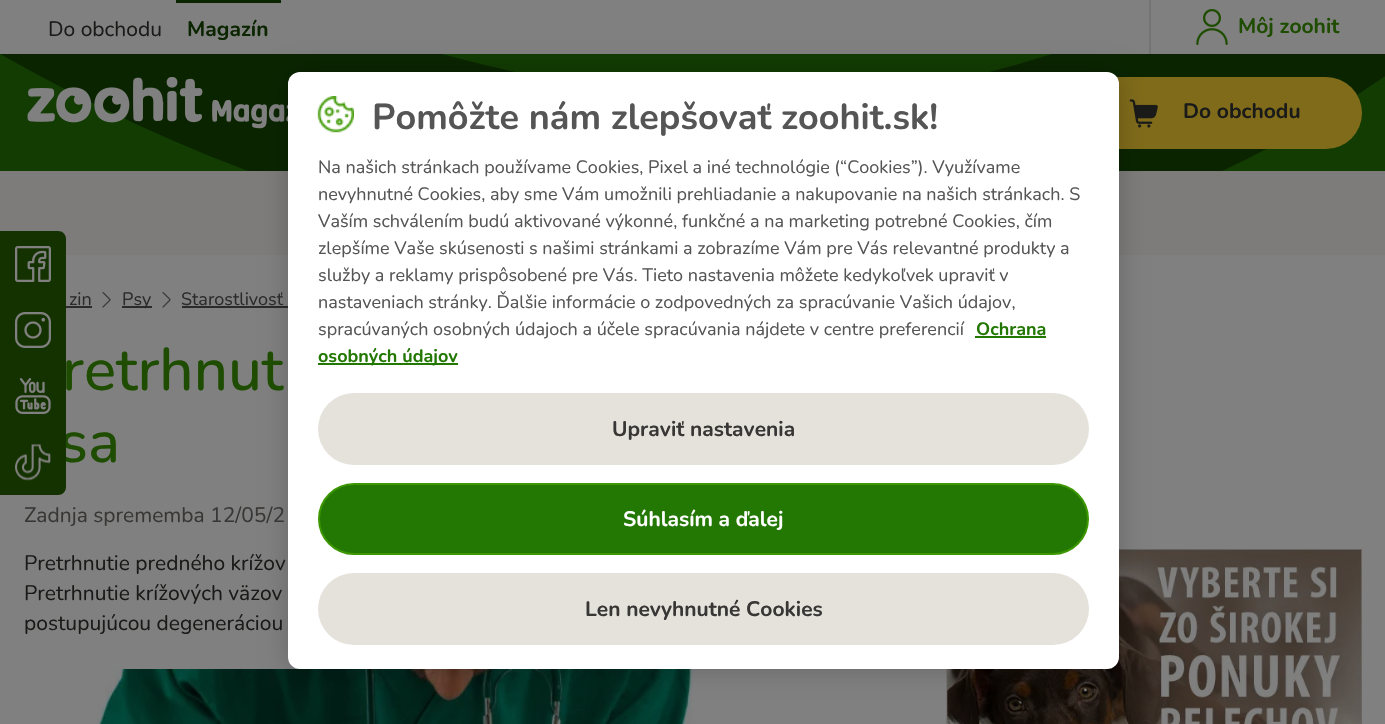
void draw(SkCanvas* canvas) {
  SkPaint paint;
  paint.setAntiAlias(true);
  auto face = [&](const char* family, int weight, float size, bool italic = false) {
    SkFontStyle style(weight, SkFontStyle::kNormal_Width,
      italic ? SkFontStyle::kItalic_Slant : SkFontStyle::kUpright_Slant);
    SkFont result(fontMgr->matchFamilyStyle(family, style), size);
    result.setSubpixel(true);
    return result;
  };
  auto paste = [&](const char* path, float x, float y, float w, float h) {
    auto image = SkImages::DeferredFromEncodedData(SkData::MakeFromFileName(path));
    canvas->drawImageRect(image, SkRect::MakeXYWH(x, y, w, h), SkSamplingOptions());
  };
  auto shape = [&](const char* data, bool evenOdd = false) {
    SkPath result = *SkParsePath::FromSVGString(data);
    if (evenOdd) result.setFillType(SkPathFillType::kEvenOdd);
    return result;
  };
  canvas->clear(0xff808080);
  paint.setColor(0xff0b2501);
  canvas->drawRect(SkRect::MakeXYWH(176, 0, 105, 3), paint);
  paint.setColor(0xff737373);
  canvas->drawRect(SkRect::MakeXYWH(1149, 0, 2, 54), paint);
  paste("img/1.png", 1196, 9, 32, 36);
  paint.setColor(0xff123c02);
  canvas->drawRect(SkRect::MakeXYWH(0, 54, 1385, 117), paint);
  paint.setColor(0xff0a2400);
  canvas->drawPath(shape("M1196 183C1274 149 1347 105 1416 54H1052C1001 70 950 83 897 90C801 102 705 101 610 89C553 81 498 69 442 54H0C90 105 184 149 281 183Z"), paint);
  paste("img/2.png", 27, 77, 261, 52);
  paint.setColor(0xff806b1a);
  canvas->drawRoundRect(SkRect::MakeXYWH(1062, 77, 300, 72), 36, 36, paint);
  paste("img/3.png", 1129, 99, 29, 29);
  paint.setColor(0xff7d7c7b);
  canvas->drawRect(SkRect::MakeXYWH(0, 171, 1385, 84), paint);
  paint.setColor(0xff2b2b2b);
  canvas->drawRect(SkRect::MakeXYWH(66, 306, 26, 2), paint);
  paste("img/8.png", 102, 292, 9, 16);
  canvas->drawRect(SkRect::MakeXYWH(122, 306, 30, 2), paint);
  paste("img/8.png", 162, 292, 9, 16);
  canvas->drawRect(SkRect::MakeXYWH(182, 306, 106, 2), paint);
  paste("img/9.png", 97, 669, 596, 55);
  paste("img/10.png", 946, 549, 416, 175);
  paint.setColor(0x33000000);
  paint.setMaskFilter(SkMaskFilter::MakeBlur(kNormal_SkBlurStyle, 13.5f));
  canvas->drawRoundRect(SkRect::MakeXYWH(288, 72, 831, 597), 12, 12, paint);
  paint.setMaskFilter(nullptr);
  paint.setColor(0xffffffff);
  canvas->drawRoundRect(SkRect::MakeXYWH(288, 72, 831, 597), 12, 12, paint);
  paste("img/11.png", 317, 96, 37, 37);
  paint.setColor(0xff237803);
  canvas->drawRect(SkRect::MakeXYWH(975, 336, 71, 2), paint);
  canvas->drawRect(SkRect::MakeXYWH(318, 363, 140, 2), paint);
  paint.setColor(0xffe5e2dc);
  canvas->drawRoundRect(SkRect::MakeXYWH(318, 393, 771, 72), 36, 36, paint);
  paint.setColor(0xff237803);
  canvas->drawRoundRect(SkRect::MakeXYWH(319, 484, 769, 70), 35, 35, paint);
  paint.setStroke(true);
  paint.setStrokeWidth(2);
  paint.setColor(0xff3c9700);
  canvas->drawRoundRect(SkRect::MakeXYWH(319, 484, 769, 70), 35, 35, paint);
  paint.setStroke(false);
  paint.setColor(0xffe5e2dc);
  canvas->drawRoundRect(SkRect::MakeXYWH(318, 573, 771, 72), 36, 36, paint);
  auto f0 = face("Nunito", 400, 21);
  paint.setColor(0xff1a1a19);
  canvas->drawString("Do obchodu", 48, 36, f0, paint);
  auto f1 = face("Nunito", 700, 21);
  paint.setColor(0xff0b2501);
  canvas->drawString("Magazín", 187, 36, f1, paint);
  paint.setColor(0xff1e4c00);
  canvas->drawString("Môj zoohit", 1238, 33, f1, paint);
  paint.setColor(0xff1a1a19);
  canvas->drawString("Do obchodu", 1183, 118, f1, paint);
  auto f2 = face("Nunito", 400, 18);
  paint.setColor(0xff2b2b2b);
  {
    const struct { const char* s; float x, y; } items[] = {
      {"zin", 69, 305},
      {"Psy", 122, 305},
      {"Starostlivosť", 181, 305},
    };
    for (auto [s, x, y] : items) {
      canvas->drawString(s, x, y, f2, paint);
    }
  }
  auto f3 = face("Nunito", 500, 60);
  paint.setColor(0xff1e4c00);
  canvas->drawString("retrhnut", 62, 390, f3, paint);
  canvas->drawString("sa", 59, 462, f3, paint);
  paint.setColor(0xff143200);
  canvas->drawPath(shape("M0 231H58C62.5 231 66 234.5 66 239V487C66 491.5 62.5 495 58 495H0Z"), paint);
  paste("img/7.png", 15, 444, 36, 37);
  paste("img/6.png", 15, 378, 36, 36);
  paste("img/5.png", 15, 312, 36, 36);
  paste("img/4.png", 15, 246, 36, 36);
  paint.setColor(0xff383735);
  canvas->drawString("Zadnja sprememba 12/05/2", 24, 522, f0, paint);
  paint.setColor(0xff1a1a19);
  {
    const struct { const char* s; float x, y; } items[] = {
      {"Pretrhnutie predného krížov", 24, 570},
      {"Pretrhnutie krížových väzov", 24, 600},
      {"postupujúcou degeneráciou", 24, 630},
    };
    for (auto [s, x, y] : items) {
      canvas->drawString(s, x, y, f0, paint);
    }
  }
  auto f4 = face("Nunito", 700, 36);
  paint.setColor(0xff555555);
  canvas->drawString("Pomôžte nám zlepšovať zoohit.sk!", 372, 129, f4, paint);
  {
    const struct { const char* s; float x, y; } items[] = {
      {"Na našich stránkach používame Cookies, Pixel a iné technológie (“Cookies”). Využívame", 318, 173},
      {"nevyhnutné Cookies, aby sme Vám umožnili prehliadanie a nakupovanie na našich stránkach. S", 318, 200},
      {"Vaším schválením budú aktivované výkonné, funkčné a na marketing potrebné Cookies, čím", 318, 227},
      {"zlepšíme Vaše skúsenosti s našimi stránkami a zobrazíme Vám pre Vás relevantné produkty a", 318, 254},
      {"služby a reklamy prispôsobené pre Vás. Tieto nastavenia môžete kedykoľvek upraviť v", 318, 281},
      {"nastaveniach stránky. Ďalšie informácie o zodpovedných za spracúvanie Vašich údajov,", 318, 308},
      {"spracúvaných osobných údajoch a účele spracúvania nájdete v centre preferencií", 318, 335},
    };
    for (auto [s, x, y] : items) {
      canvas->drawString(s, x, y, f2, paint);
    }
  }
  auto f5 = face("Nunito", 700, 18);
  paint.setColor(0xff237803);
  canvas->drawString("Ochrana", 976, 335, f5, paint);
  canvas->drawString("osobných údajov", 318, 362, f5, paint);
  paint.setColor(0xff383735);
  canvas->drawString("Upraviť nastavenia", 612, 436, f1, paint);
  paint.setColor(0xffffffff);
  canvas->drawString("Súhlasím a ďalej", 623, 526, f1, paint);
  paint.setColor(0xff383735);
  canvas->drawString("Len nevyhnutné Cookies", 585, 616, f1, paint);
}
